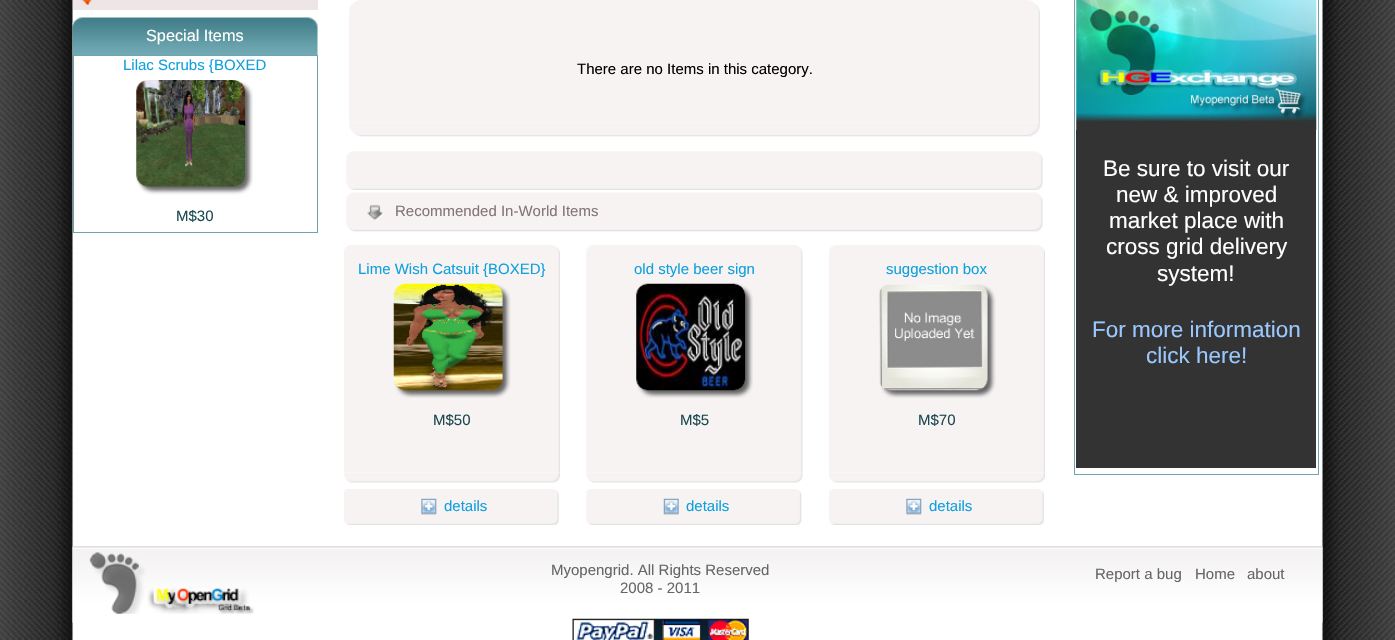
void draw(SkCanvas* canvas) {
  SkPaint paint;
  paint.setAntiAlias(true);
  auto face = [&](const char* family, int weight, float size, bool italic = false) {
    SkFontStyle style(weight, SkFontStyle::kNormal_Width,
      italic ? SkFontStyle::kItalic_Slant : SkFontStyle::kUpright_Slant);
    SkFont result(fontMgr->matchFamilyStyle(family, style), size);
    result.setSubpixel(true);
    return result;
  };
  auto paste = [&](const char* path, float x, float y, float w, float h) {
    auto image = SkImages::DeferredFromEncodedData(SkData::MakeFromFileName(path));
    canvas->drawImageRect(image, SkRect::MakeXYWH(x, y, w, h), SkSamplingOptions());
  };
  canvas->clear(0xffffffff);
  paste("img/1.png", 0, 0, 1395, 640);
  paint.setColor(0xffeee6e6);
  canvas->drawRect(SkRect::MakeXYWH(73, 0, 245, 10), paint);
  paste("img/2.png", 81, 0, 11, 5);
  paint.setColor(0xffffffff);
  canvas->drawRect(SkRect::MakeXYWH(73, 10, 1, 1), paint);
  paste("img/3.png", 72, 17, 246, 38);
  paint.setStroke(true);
  paint.setStrokeWidth(1);
  paint.setColor(0xff6da6b1);
  canvas->drawRect(SkRect::MakeXYWH(73.5f, 55.5f, 244, 177), paint);
  paste("img/4.png", 136, 80, 117, 115);
  paste("img/5.png", 349, 0, 691, 15);
  paste("img/6.png", 349, 15, 691, 108);
  paste("img/7.png", 349, 122, 691, 15);
  paste("img/8.png", 346, 151, 697, 39);
  paste("img/9.png", 346, 192, 697, 40);
  paste("img/10.png", 344, 245, 216, 15);
  paste("img/13.png", 344, 472, 216, 11);
  paste("img/11.png", 344, 260, 216, 213);
  paste("img/12.png", 393, 283, 118, 115);
  paste("img/14.png", 344, 489, 215, 36);
  paste("img/15.png", 421, 498, 16, 17);
  paste("img/16.png", 586, 245, 217, 15);
  paste("img/19.png", 586, 472, 217, 11);
  paste("img/17.png", 586, 260, 217, 213);
  paste("img/18.png", 636, 283, 117, 115);
  paste("img/20.png", 586, 489, 216, 36);
  paste("img/21.png", 663, 498, 16, 17);
  paste("img/22.png", 829, 245, 216, 15);
  paste("img/24.png", 829, 472, 216, 11);
  paste("img/11.png", 829, 260, 216, 213);
  paste("img/23.png", 878, 284, 118, 114);
  paste("img/25.png", 829, 489, 215, 36);
  paste("img/26.png", 906, 498, 16, 17);
  canvas->drawRect(SkRect::MakeXYWH(1074.5f, -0.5f, 244, 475), paint);
  paste("img/27.png", 1076, 0, 241, 130);
  paint.setStroke(false);
  paint.setColor(0xff333333);
  canvas->drawRect(SkRect::MakeXYWH(1076, 130, 240, 338), paint);
  paste("img/28.png", 72, 546, 1251, 77);
  paste("img/29.png", 89, 552, 165, 62);
  paste("img/30.png", 572, 618, 177, 22);
  auto f0 = face("Liberation Sans", 400, 16.25f);
  paint.setColor(0xffffffff);
  canvas->drawString("Special Items", 146, 41, f0, paint);
  auto f1 = face("Liberation Sans", 400, 15);
  paint.setColor(0xff0fa0dd);
  canvas->drawString("Lilac Scrubs {BOXED", 123, 70, f1, paint);
  paint.setColor(0xff1c4a52);
  canvas->drawString("M$30", 176, 221, f1, paint);
  paint.setColor(0xff000000);
  canvas->drawString("There are no Items in this category.", 577, 74, f1, paint);
  paint.setColor(0xff847676);
  canvas->drawString("Recommended In-World Items", 395, 216, f1, paint);
  paint.setColor(0xff0fa0dd);
  canvas->drawString("Lime Wish Catsuit {BOXED}", 358, 274, f1, paint);
  paint.setColor(0xff1c4a52);
  canvas->drawString("M$50", 433, 425, f1, paint);
  paint.setColor(0xff0fa0dd);
  canvas->drawString("details", 444, 511, f1, paint);
  canvas->drawString("old style beer sign", 634, 274, f1, paint);
  paint.setColor(0xff1c4a52);
  canvas->drawString("M$5", 680, 425, f1, paint);
  paint.setColor(0xff0fa0dd);
  canvas->drawString("details", 686, 511, f1, paint);
  canvas->drawString("suggestion box", 886, 274, f1, paint);
  paint.setColor(0xff1c4a52);
  canvas->drawString("M$70", 918, 425, f1, paint);
  paint.setColor(0xff0fa0dd);
  canvas->drawString("details", 929, 511, f1, paint);
  auto f2 = face("Liberation Sans", 400, 22.5f);
  paint.setColor(0xffffffff);
  {
    const struct { const char* s; float x, y; } items[] = {
      {"Be sure to visit our", 1103, 176},
      {"new & improved", 1116, 202},
      {"market place with", 1109, 228},
      {"cross grid delivery", 1106, 254},
      {"system!", 1157, 281},
    };
    for (auto [s, x, y] : items) {
      canvas->drawString(s, x, y, f2, paint);
    }
  }
  paint.setColor(0xff9ac8fd);
  canvas->drawString("For more information", 1092, 337, f2, paint);
  canvas->drawString("click here!", 1146, 363, f2, paint);
  paint.setColor(0xff666666);
  {
    const struct { const char* s; float x, y; } items[] = {
      {"Myopengrid. All Rights Reserved", 551, 575},
      {"2008 - 2011", 620, 593},
      {"Report a bug", 1095, 579},
      {"Home", 1195, 579},
      {"about", 1247, 579},
    };
    for (auto [s, x, y] : items) {
      canvas->drawString(s, x, y, f1, paint);
    }
  }
}
